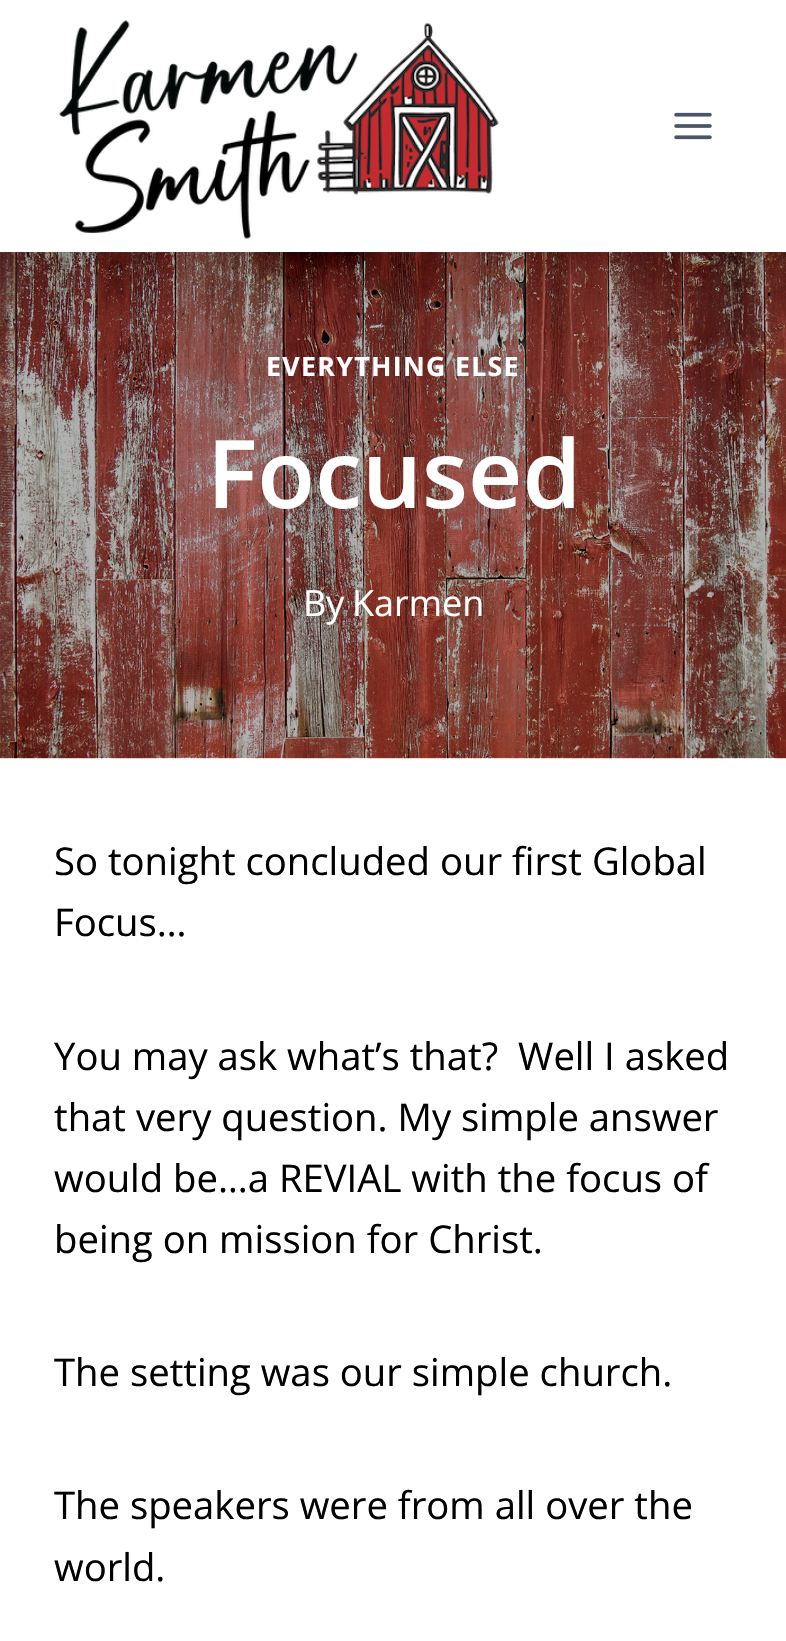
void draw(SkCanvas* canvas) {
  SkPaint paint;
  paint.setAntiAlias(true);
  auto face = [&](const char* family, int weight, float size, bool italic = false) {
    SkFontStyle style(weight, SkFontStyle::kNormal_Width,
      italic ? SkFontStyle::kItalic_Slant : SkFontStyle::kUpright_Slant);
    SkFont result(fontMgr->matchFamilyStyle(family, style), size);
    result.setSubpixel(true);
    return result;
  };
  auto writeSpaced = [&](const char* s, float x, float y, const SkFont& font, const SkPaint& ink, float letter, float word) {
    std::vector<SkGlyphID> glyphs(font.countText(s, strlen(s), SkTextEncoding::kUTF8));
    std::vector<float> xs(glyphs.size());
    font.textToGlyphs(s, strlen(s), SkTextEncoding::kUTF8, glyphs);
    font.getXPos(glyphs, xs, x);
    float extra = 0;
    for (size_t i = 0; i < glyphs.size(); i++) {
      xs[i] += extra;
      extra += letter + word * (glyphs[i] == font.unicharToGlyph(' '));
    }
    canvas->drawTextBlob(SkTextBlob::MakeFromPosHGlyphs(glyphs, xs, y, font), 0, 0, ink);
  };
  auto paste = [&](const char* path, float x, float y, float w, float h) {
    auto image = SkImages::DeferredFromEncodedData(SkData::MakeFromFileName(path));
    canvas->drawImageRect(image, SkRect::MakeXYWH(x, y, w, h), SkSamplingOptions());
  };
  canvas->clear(0xffffffff);
  paste("img/1.png", 59, 20, 440, 219);
  paste("img/2.png", 674, 112, 38, 28);
  paste("img/3.png", 0, 252, 786, 507);
  auto f0 = face("Open Sans", 700, 26.75f);
  paint.setColor(0xffffffff);
  writeSpaced("EVERYTHING ELSE", 266, 376, f0, paint, 1.3f, 0);
  auto f1 = face("Open Sans", 600, 94.5f);
  canvas->drawString("Focused", 207, 508, f1, paint);
  auto f2 = face("Open Sans", 400, 36);
  canvas->drawString("By", 303, 616, f2, paint);
  canvas->drawString("Karmen", 352, 616, f2, paint);
  auto f3 = face("Open Sans", 400, 38.25f);
  paint.setColor(0xff000000);
  {
    const struct { const char* s; float x, y; } items[] = {
      {"So tonight concluded our first Global", 54, 875},
      {"Focus…", 54, 936},
      {"You may ask what’s that?  Well I asked", 54, 1070},
      {"that very question. My simple answer", 54, 1131},
      {"would be…a REVIAL with the focus of", 54, 1192},
      {"being on mission for Christ.", 54, 1253},
      {"The setting was our simple church.", 54, 1386},
      {"The speakers were from all over the", 54, 1519},
      {"world.", 54, 1581},
    };
    for (auto [s, x, y] : items) {
      canvas->drawString(s, x, y, f3, paint);
    }
  }
}
